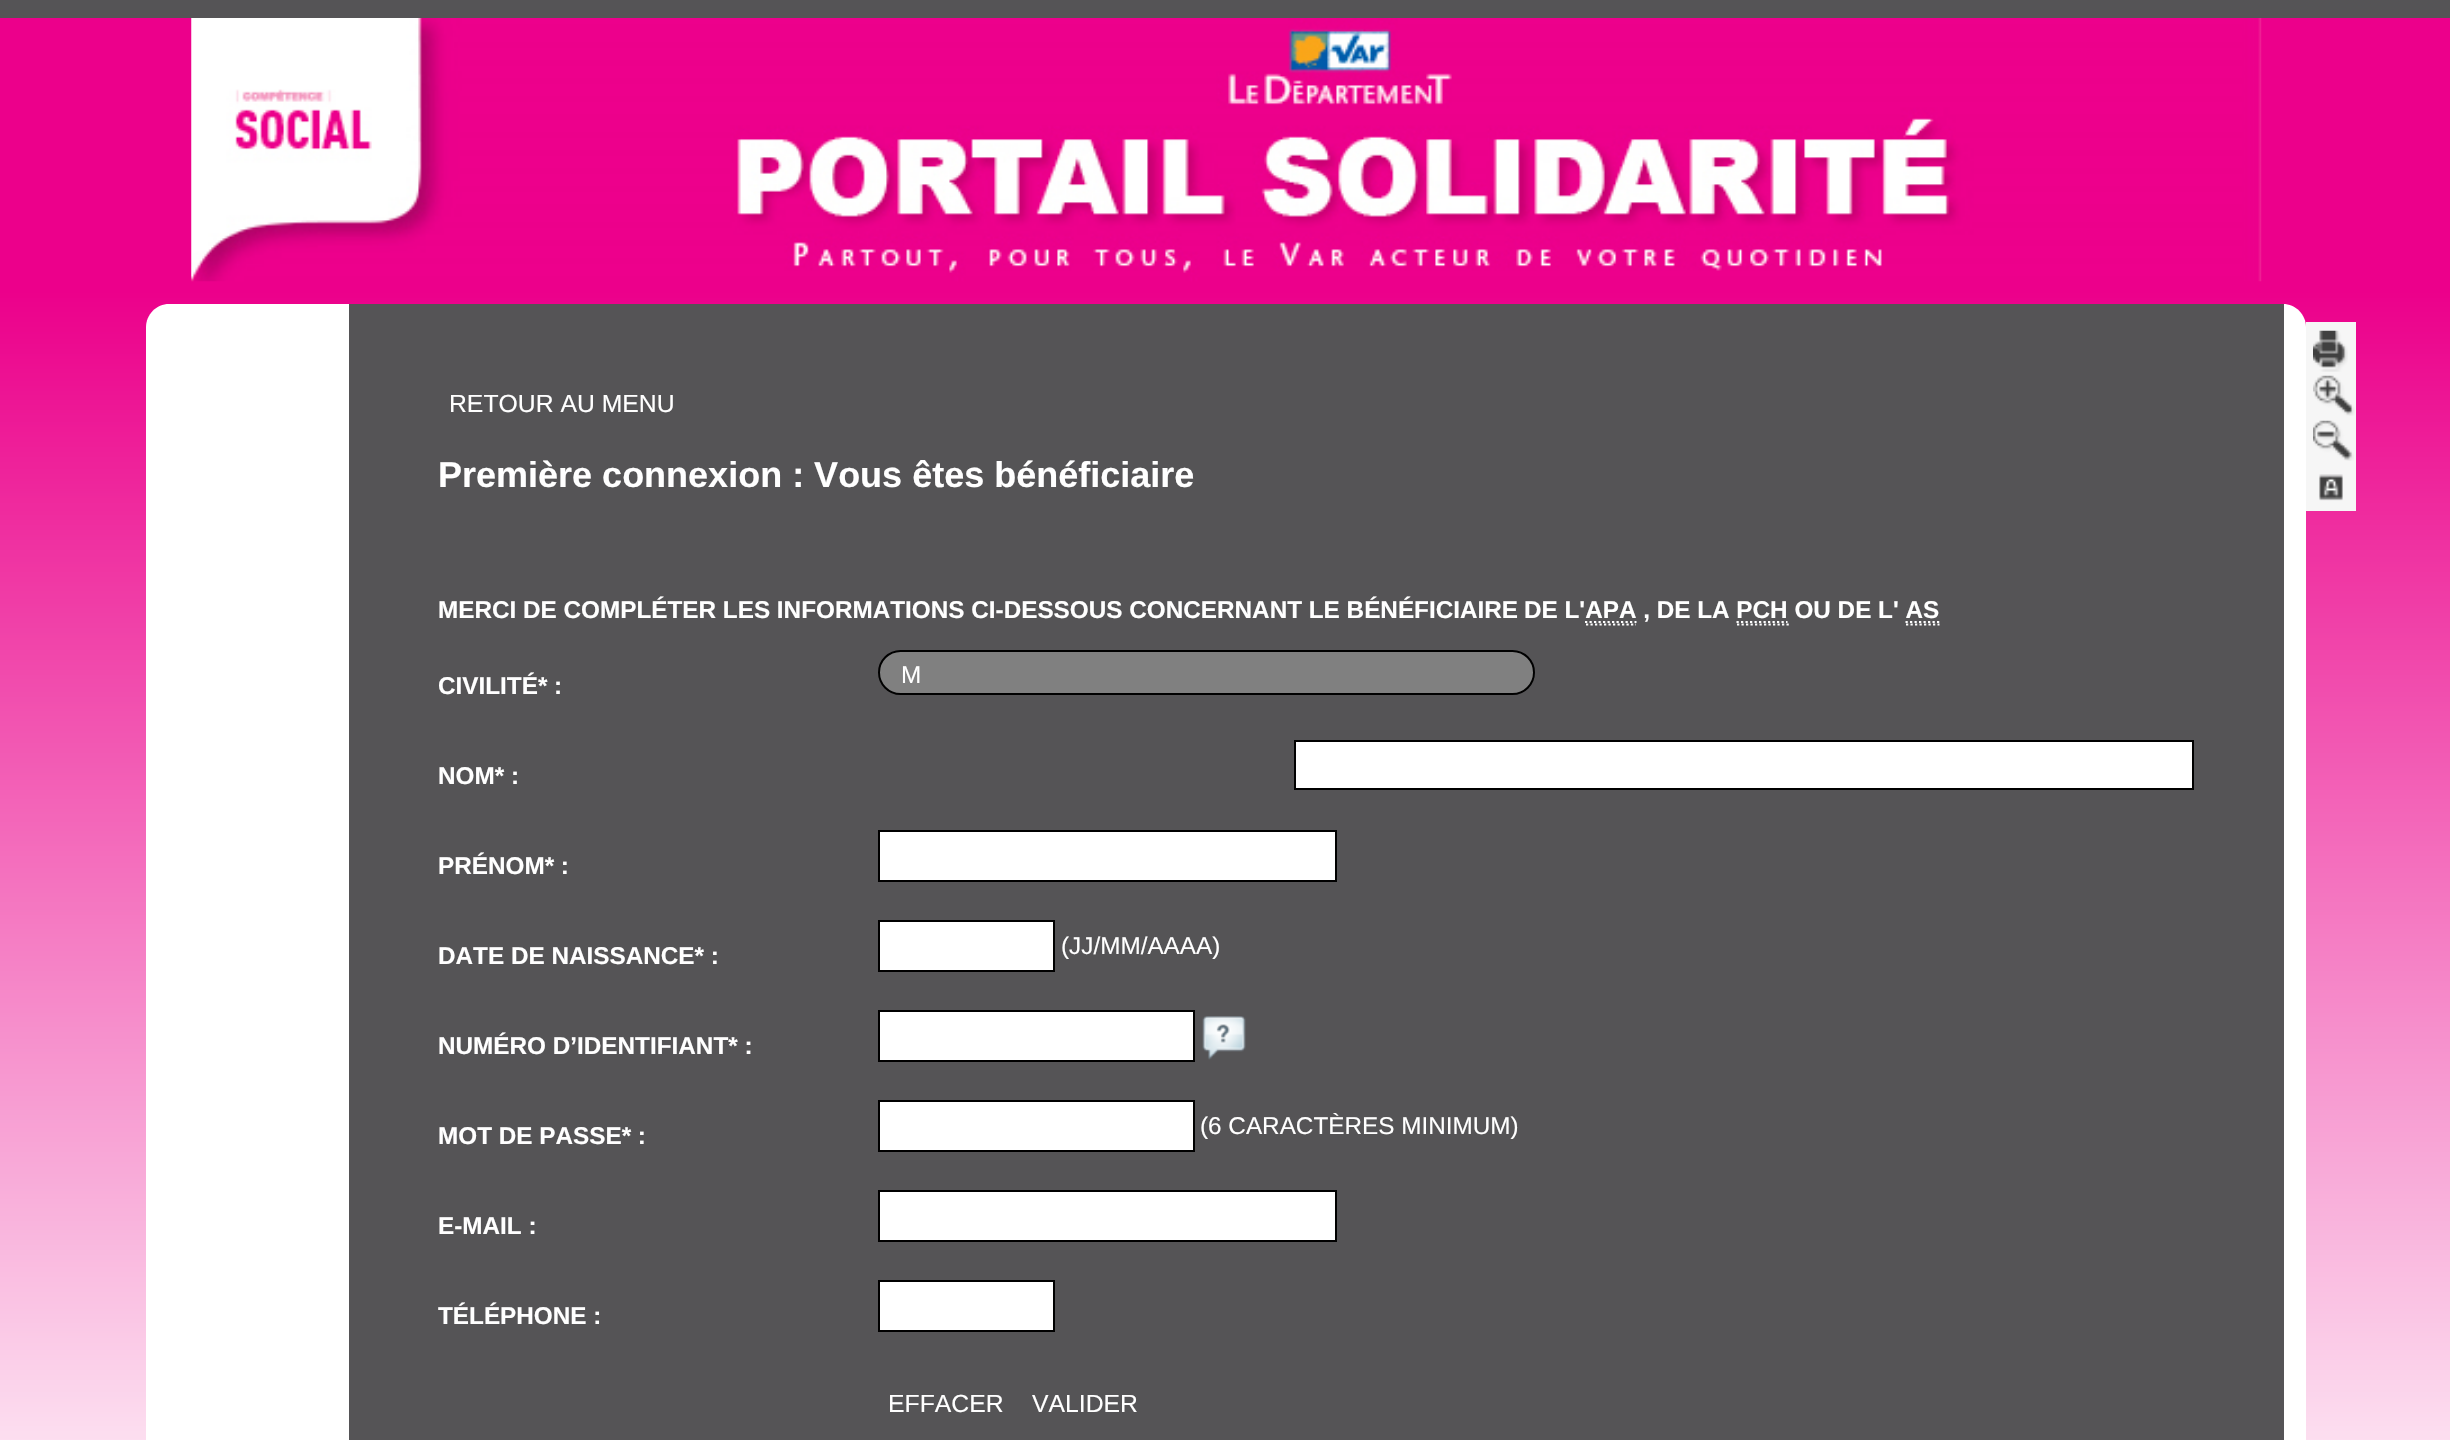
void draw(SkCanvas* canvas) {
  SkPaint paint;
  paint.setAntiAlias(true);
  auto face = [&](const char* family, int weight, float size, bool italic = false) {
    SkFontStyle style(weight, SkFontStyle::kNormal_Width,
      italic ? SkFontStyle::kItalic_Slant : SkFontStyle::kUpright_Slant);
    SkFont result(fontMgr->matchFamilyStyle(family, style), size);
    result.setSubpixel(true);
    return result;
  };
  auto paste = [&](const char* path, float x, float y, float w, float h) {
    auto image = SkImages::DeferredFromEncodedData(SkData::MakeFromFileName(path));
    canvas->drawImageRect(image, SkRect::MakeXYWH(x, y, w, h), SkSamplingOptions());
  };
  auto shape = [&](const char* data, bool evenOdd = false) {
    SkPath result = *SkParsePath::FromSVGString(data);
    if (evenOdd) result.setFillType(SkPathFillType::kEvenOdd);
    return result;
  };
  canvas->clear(0xffffffff);
  paste("img/1.png", 0, 18, 2450, 1422);
  paint.setColor(0xff555456);
  canvas->drawRect(SkRect::MakeXYWH(0, 0, 2450, 18), paint);
  paste("img/2.png", 191, 18, 2071, 264);
  paint.setColor(0xffffffff);
  canvas->drawPath(shape("M169 304H2283C2295.5 304 2306 314.5 2306 327V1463H146V327C146 314.5 156.5 304 169 304Z"), paint);
  paint.setColor(0xff555456);
  canvas->drawRect(SkRect::MakeXYWH(349, 304, 1935, 1136), paint);
  paint.setStroke(true);
  paint.setStrokeWidth(2.2f);
  paint.setColor(0xffffffff);
  paint.setPathEffect(SkDashPathEffect::Make({{2.25f, 2.25f}}, 0));
  canvas->drawPath(shape("M1586 624.5H1636M1585 622H1636.5"), paint);
  paint.setPathEffect(nullptr);
  paint.setPathEffect(SkDashPathEffect::Make({{2.25f, 2.25f}}, 0));
  canvas->drawPath(shape("M1737 624.5H1789M1736.5 622H1787.5"), paint);
  paint.setPathEffect(nullptr);
  paint.setPathEffect(SkDashPathEffect::Make({{2.25f, 2.25f}}, 0));
  canvas->drawPath(shape("M1906 624.5H1939.5M1905.5 622H1939.5"), paint);
  paint.setPathEffect(nullptr);
  paint.setStroke(false);
  paint.setColor(0xff808080);
  canvas->drawRoundRect(SkRect::MakeXYWH(879, 651, 655, 43), 21.5f, 21.5f, paint);
  paint.setStroke(true);
  paint.setStrokeWidth(2);
  paint.setColor(0xff000000);
  canvas->drawRoundRect(SkRect::MakeXYWH(879, 651, 655, 43), 21.5f, 21.5f, paint);
  paint.setStroke(false);
  paint.setColor(0xffffffff);
  canvas->drawRect(SkRect::MakeXYWH(1295, 741, 898, 48), paint);
  paint.setStroke(true);
  paint.setColor(0xff000000);
  canvas->drawRect(SkRect::MakeXYWH(1295, 741, 898, 48), paint);
  paint.setStroke(false);
  paint.setColor(0xffffffff);
  canvas->drawRect(SkRect::MakeXYWH(879, 831, 457, 50), paint);
  paint.setStroke(true);
  paint.setColor(0xff000000);
  canvas->drawRect(SkRect::MakeXYWH(879, 831, 457, 50), paint);
  paint.setStroke(false);
  paint.setColor(0xffffffff);
  canvas->drawRect(SkRect::MakeXYWH(879, 921, 175, 50), paint);
  paint.setStroke(true);
  paint.setColor(0xff000000);
  canvas->drawRect(SkRect::MakeXYWH(879, 921, 175, 50), paint);
  paint.setStroke(false);
  paint.setColor(0xffffffff);
  canvas->drawRect(SkRect::MakeXYWH(879, 1011, 315, 50), paint);
  paint.setStroke(true);
  paint.setColor(0xff000000);
  canvas->drawRect(SkRect::MakeXYWH(879, 1011, 315, 50), paint);
  paste("img/3.png", 1202, 1016, 44, 44);
  paint.setStroke(false);
  paint.setColor(0xffffffff);
  canvas->drawRect(SkRect::MakeXYWH(879, 1101, 315, 50), paint);
  paint.setStroke(true);
  paint.setColor(0xff000000);
  canvas->drawRect(SkRect::MakeXYWH(879, 1101, 315, 50), paint);
  paint.setStroke(false);
  paint.setColor(0xffffffff);
  canvas->drawRect(SkRect::MakeXYWH(879, 1191, 457, 50), paint);
  paint.setStroke(true);
  paint.setColor(0xff000000);
  canvas->drawRect(SkRect::MakeXYWH(879, 1191, 457, 50), paint);
  paint.setStroke(false);
  paint.setColor(0xffffffff);
  canvas->drawRect(SkRect::MakeXYWH(879, 1281, 175, 50), paint);
  paint.setStroke(true);
  paint.setColor(0xff000000);
  canvas->drawRect(SkRect::MakeXYWH(879, 1281, 175, 50), paint);
  paint.setStroke(false);
  paint.setColor(0xfff6f6f6);
  canvas->drawRect(SkRect::MakeXYWH(2306, 322, 50, 189), paint);
  paste("img/4.png", 2313, 330, 35, 42);
  paste("img/5.png", 2313, 375, 42, 41);
  paste("img/6.png", 2313, 420, 41, 41);
  paste("img/7.png", 2319, 474, 24, 27);
  auto f0 = face("Liberation Sans", 400, 24.75f);
  paint.setColor(0xffffffff);
  canvas->drawString("RETOUR AU MENU", 449, 412, f0, paint);
  auto f1 = face("Liberation Sans", 700, 36);
  canvas->drawString("Première connexion : Vous êtes bénéficiaire", 438, 487, f1, paint);
  auto f2 = face("Liberation Sans", 700, 24.3f);
  {
    const struct { const char* s; float x, y; } items[] = {
      {"MERCI DE COMPLÉTER LES INFORMATIONS CI-DESSOUS CONCERNANT LE BÉNÉFICIAIRE", 438, 618},
      {"DE L'APA , DE LA PCH OU DE L' AS", 1524, 618},
      {"CIVILITÉ* :", 438, 694},
    };
    for (auto [s, x, y] : items) {
      canvas->drawString(s, x, y, f2, paint);
    }
  }
  auto f3 = face("Liberation Sans", 400, 24.3f);
  canvas->drawString("M", 901, 683, f3, paint);
  {
    const struct { const char* s; float x, y; } items[] = {
      {"NOM* :", 438, 784},
      {"PRÉNOM* :", 438, 874},
      {"DATE DE NAISSANCE* :", 438, 964},
    };
    for (auto [s, x, y] : items) {
      canvas->drawString(s, x, y, f2, paint);
    }
  }
  canvas->drawString("(JJ/MM/AAAA)", 1061, 954, f3, paint);
  canvas->drawString("NUMÉRO D’IDENTIFIANT* :", 438, 1054, f2, paint);
  canvas->drawString("MOT DE PASSE* :", 438, 1144, f2, paint);
  canvas->drawString("(6 CARACTÈRES MINIMUM)", 1200, 1134, f3, paint);
  canvas->drawString("E-MAIL :", 438, 1234, f2, paint);
  canvas->drawString("TÉLÉPHONE :", 438, 1324, f2, paint);
  canvas->drawString("EFFACER", 888, 1412, f0, paint);
  canvas->drawString("VALIDER", 1032, 1412, f0, paint);
}
